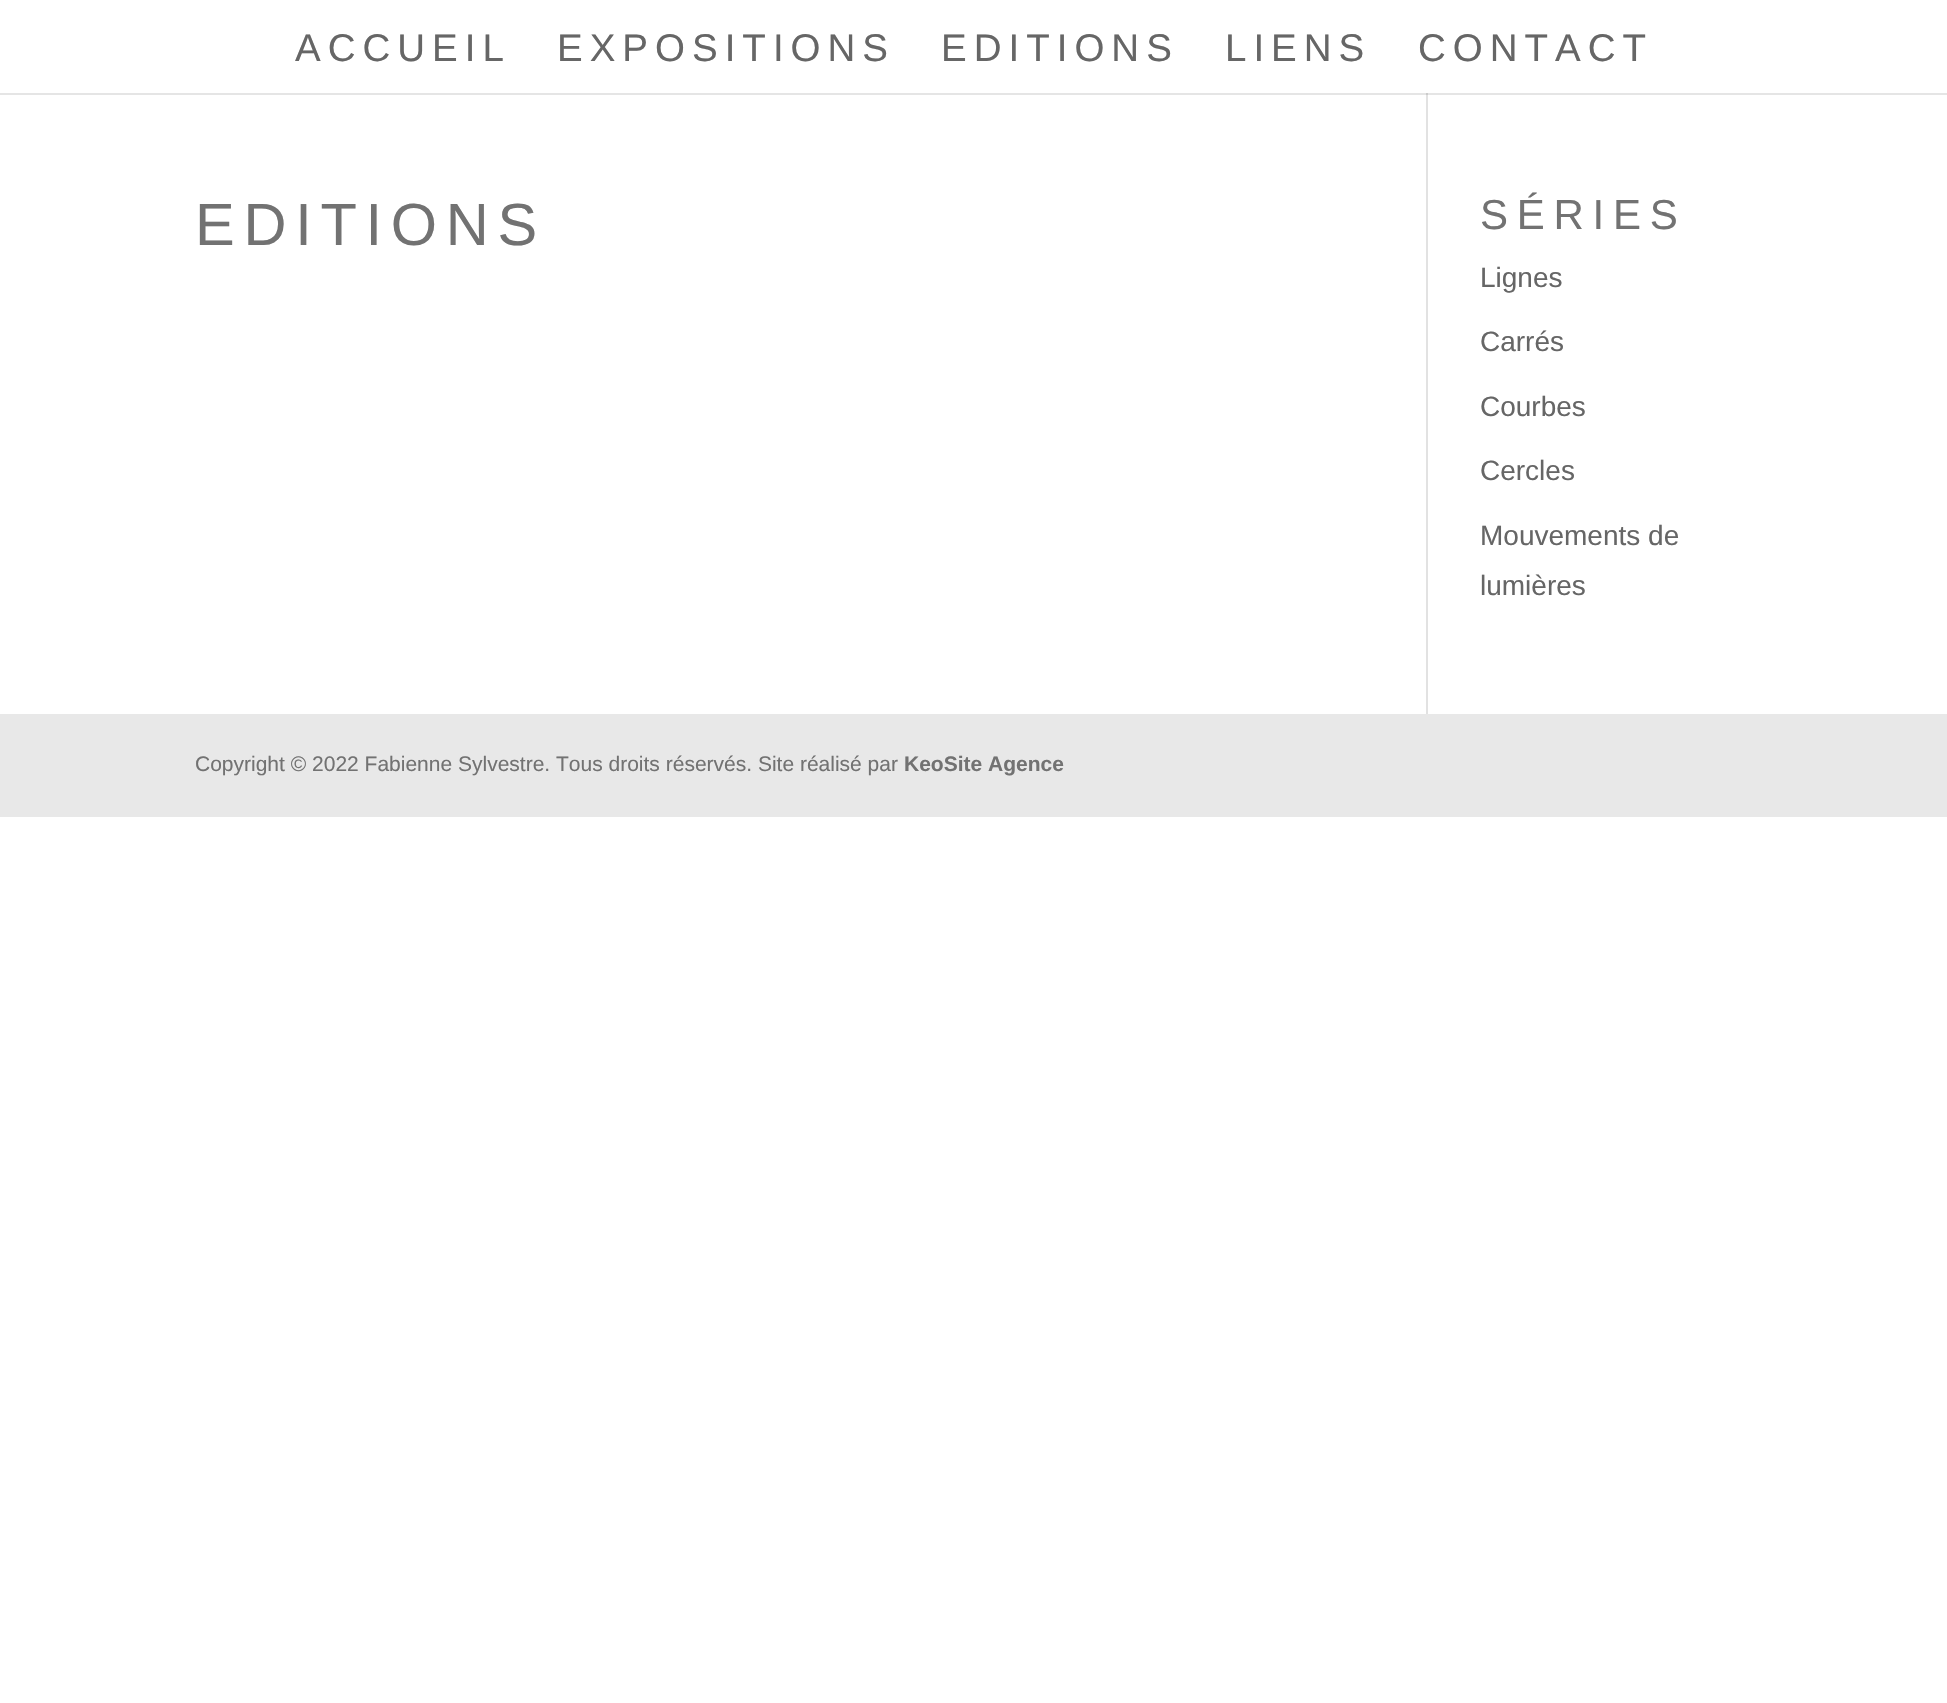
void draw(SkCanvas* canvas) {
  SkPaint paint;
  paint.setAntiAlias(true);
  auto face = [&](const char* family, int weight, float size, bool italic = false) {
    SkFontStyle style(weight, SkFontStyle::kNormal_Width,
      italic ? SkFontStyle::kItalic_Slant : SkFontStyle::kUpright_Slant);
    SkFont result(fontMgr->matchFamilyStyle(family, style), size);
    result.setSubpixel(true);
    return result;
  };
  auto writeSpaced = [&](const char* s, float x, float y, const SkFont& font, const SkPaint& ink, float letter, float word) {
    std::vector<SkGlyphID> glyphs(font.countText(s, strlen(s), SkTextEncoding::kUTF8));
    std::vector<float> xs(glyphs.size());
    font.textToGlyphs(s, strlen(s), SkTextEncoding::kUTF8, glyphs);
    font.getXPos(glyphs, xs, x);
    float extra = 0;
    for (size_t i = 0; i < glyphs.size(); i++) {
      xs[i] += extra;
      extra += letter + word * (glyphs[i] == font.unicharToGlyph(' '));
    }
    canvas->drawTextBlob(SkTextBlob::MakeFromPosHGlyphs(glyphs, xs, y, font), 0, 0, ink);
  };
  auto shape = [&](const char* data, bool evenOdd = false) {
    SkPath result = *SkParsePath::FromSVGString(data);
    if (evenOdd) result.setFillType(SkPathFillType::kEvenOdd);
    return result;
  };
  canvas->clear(0xffffffff);
  paint.setColor(0xffe2e2e2);
  canvas->drawRect(SkRect::MakeXYWH(1426, 93, 2, 621), paint);
  paint.setColor(0x1a000000);
  canvas->drawPath(shape("M0 93V95H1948V2V93Z"), paint);
  paint.setColor(0xffe8e8e8);
  canvas->drawRect(SkRect::MakeXYWH(0, 714, 1947, 103), paint);
  auto f0 = face("Liberation Sans", 400, 38.5f);
  paint.setColor(0xff666666);
  {
    const struct { const char* s; float x, y; } items[] = {
      {"ACCUEIL", 295, 61},
      {"EXPOSITIONS", 557, 61},
      {"EDITIONS", 941, 61},
      {"LIENS", 1225, 61},
      {"CONTACT", 1418, 61},
    };
    for (auto [s, x, y] : items) {
      writeSpaced(s, x, y, f0, paint, 7, 0);
    }
  }
  auto f1 = face("Liberation Sans", 400, 59.5f);
  paint.setColor(0xff727272);
  writeSpaced("EDITIONS", 195, 245, f1, paint, 8.75f, 0);
  auto f2 = face("Liberation Sans", 400, 42);
  writeSpaced("SÉRIES", 1480, 229, f2, paint, 8.75f, 0);
  auto f3 = face("Liberation Sans", 400, 28);
  paint.setColor(0xff666666);
  {
    const struct { const char* s; float x, y; } items[] = {
      {"Lignes", 1480, 287},
      {"Carrés", 1480, 351},
      {"Courbes", 1480, 416},
      {"Cercles", 1480, 480},
      {"Mouvements de", 1480, 545},
      {"lumières", 1480, 595},
    };
    for (auto [s, x, y] : items) {
      canvas->drawString(s, x, y, f3, paint);
    }
  }
  auto f4 = face("Liberation Sans", 400, 21);
  paint.setColor(0xff727272);
  canvas->drawString("Copyright © 2022 Fabienne Sylvestre. Tous droits réservés. Site réalisé par", 195, 771, f4, paint);
  auto f5 = face("Liberation Sans", 700, 21);
  canvas->drawString("KeoSite Agence", 904, 771, f5, paint);
}
